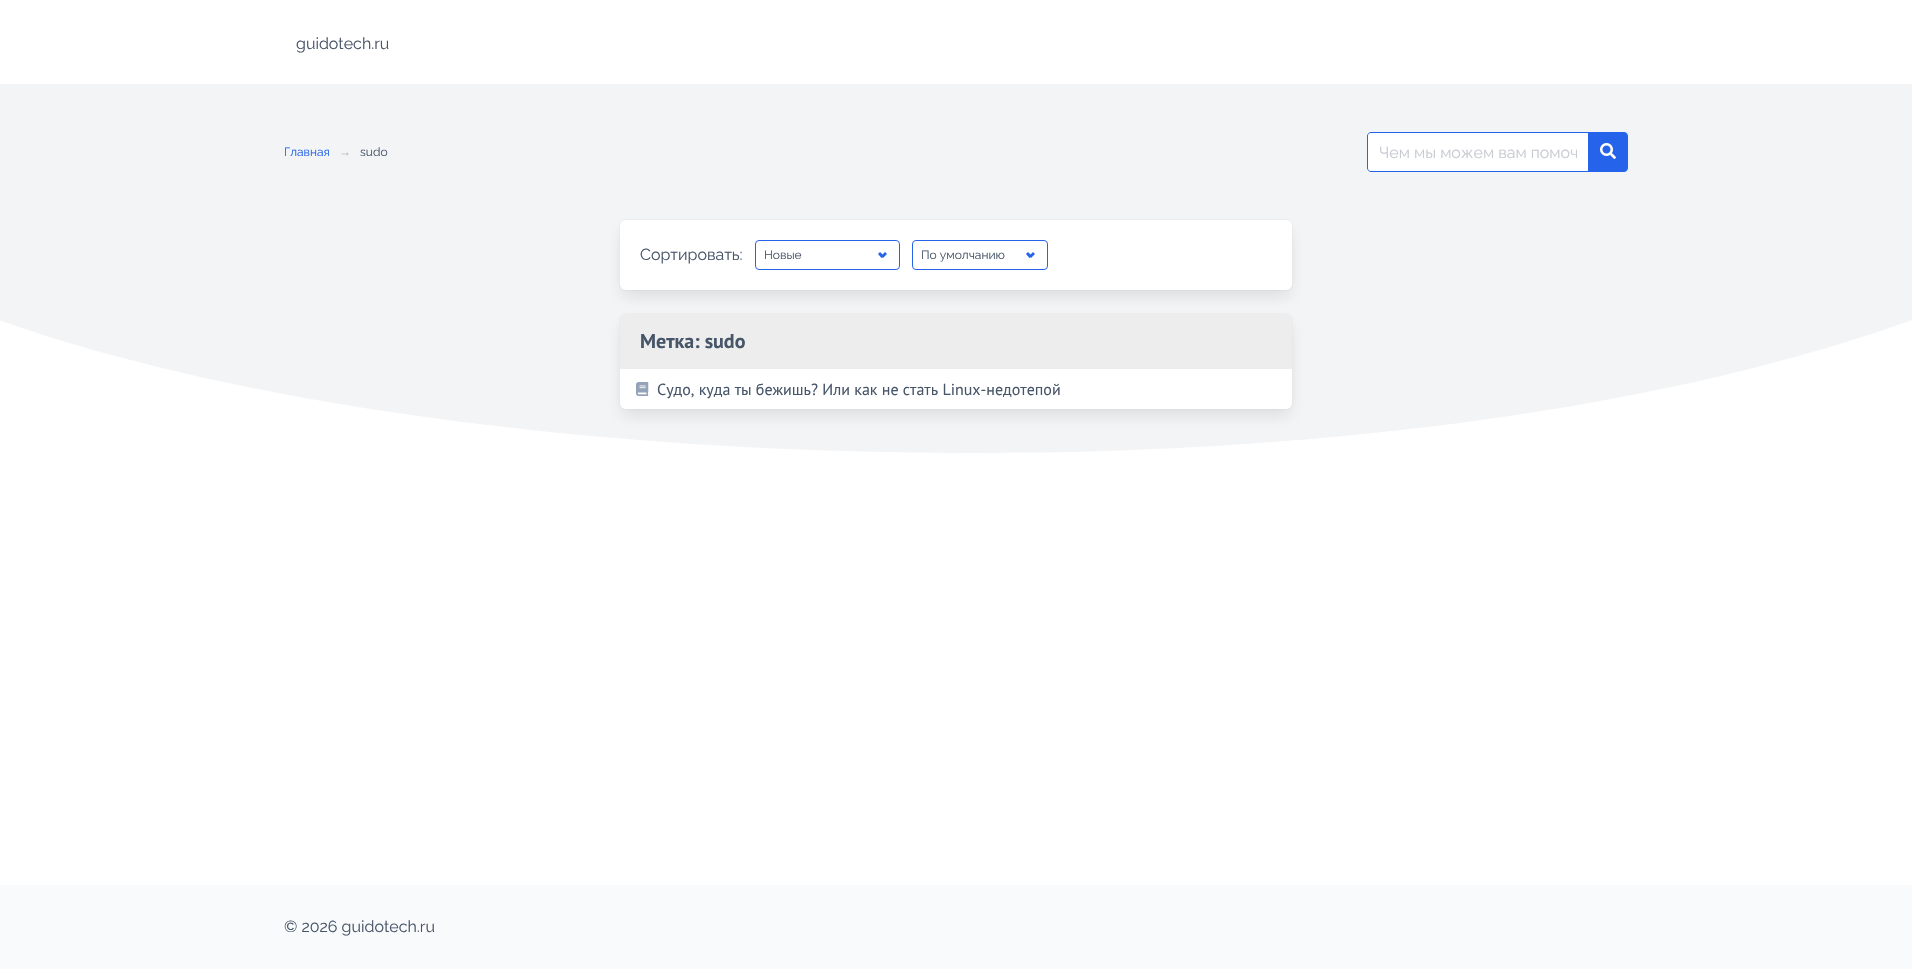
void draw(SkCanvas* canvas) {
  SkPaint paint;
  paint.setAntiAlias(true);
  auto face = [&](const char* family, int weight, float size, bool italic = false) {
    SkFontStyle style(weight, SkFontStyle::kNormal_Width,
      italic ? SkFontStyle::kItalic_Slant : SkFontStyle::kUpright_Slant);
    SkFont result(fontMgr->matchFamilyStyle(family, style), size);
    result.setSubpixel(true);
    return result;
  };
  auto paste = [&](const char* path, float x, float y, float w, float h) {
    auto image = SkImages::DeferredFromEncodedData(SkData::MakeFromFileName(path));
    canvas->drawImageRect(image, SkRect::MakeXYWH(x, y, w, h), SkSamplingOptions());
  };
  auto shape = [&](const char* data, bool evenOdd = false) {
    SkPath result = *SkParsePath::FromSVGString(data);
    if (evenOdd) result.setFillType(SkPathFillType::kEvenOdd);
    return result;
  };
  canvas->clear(0xffffffff);
  paint.setColor(0xfff3f4f6);
  canvas->drawPath(shape("M-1 320V84H1912V320C1684 402 1356 453 971 453C587 453 227 402-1 320Z"), paint);
  paint.setColor(0xffffffff);
  canvas->drawPath(shape("M1371 132.5H1588.5V171.5H1371C1369 171.5 1367.5 170 1367.5 168V136C1367.5 134 1369 132.5 1371 132.5Z"), paint);
  paint.setStroke(true);
  paint.setStrokeWidth(1);
  paint.setColor(0xff2563eb);
  canvas->drawPath(shape("M1371 132.5H1588.5V171.5H1371C1369 171.5 1367.5 170 1367.5 168V136C1367.5 134 1369 132.5 1371 132.5Z"), paint);
  paint.setStroke(false);
  canvas->drawPath(shape("M1588 132H1624C1626 132 1628 134 1628 136V168C1628 170 1626 172 1624 172H1588Z"), paint);
  paste("img/1.png", 1600, 143, 16, 16);
  paint.setStroke(true);
  paint.setColor(0xffeeeff1);
  canvas->drawRoundRect(SkRect::MakeXYWH(619.5f, 219.5f, 673, 71), 6.5f, 6.5f, paint);
  paint.setStroke(false);
  paint.setColor(0x1a0a0a0a);
  paint.setMaskFilter(SkMaskFilter::MakeBlur(kNormal_SkBlurStyle, 8));
  canvas->drawRoundRect(SkRect::MakeXYWH(622, 230, 668, 66), 4, 4, paint);
  paint.setMaskFilter(nullptr);
  paint.setColor(0xffffffff);
  canvas->drawRoundRect(SkRect::MakeXYWH(620, 220, 672, 70), 6, 6, paint);
  paint.setStroke(true);
  paint.setColor(0xff2563eb);
  canvas->drawRoundRect(SkRect::MakeXYWH(755.5f, 240.5f, 144, 29), 3.5f, 3.5f, paint);
  paint.setStroke(false);
  canvas->drawPath(shape("M881 256L885 252L887 254L883 258Z"), paint);
  canvas->drawPath(shape("M878 254L880 252L884 256L881.5 258Z"), paint);
  paint.setStroke(true);
  canvas->drawRoundRect(SkRect::MakeXYWH(912.5f, 240.5f, 135, 29), 3.5f, 3.5f, paint);
  paint.setStroke(false);
  canvas->drawPath(shape("M1029 256L1033 252L1035 254L1031 258Z"), paint);
  canvas->drawPath(shape("M1026 254L1028 252L1032 256L1029.5 258Z"), paint);
  paint.setStroke(true);
  paint.setColor(0xffeeeff1);
  canvas->drawRoundRect(SkRect::MakeXYWH(619.5f, 313.5f, 673, 96), 6.5f, 6.5f, paint);
  paint.setStroke(false);
  paint.setColor(0x1a0a0a0a);
  paint.setMaskFilter(SkMaskFilter::MakeBlur(kNormal_SkBlurStyle, 8));
  canvas->drawRoundRect(SkRect::MakeXYWH(622, 324, 668, 91), 4, 4, paint);
  paint.setMaskFilter(nullptr);
  paint.setColor(0xffffffff);
  canvas->drawRoundRect(SkRect::MakeXYWH(620, 314, 672, 95), 6, 6, paint);
  paint.setColor(0xffededed);
  canvas->drawPath(shape("M626 314H1286C1289.5 314 1292 316.5 1292 320V369H620V320C620 316.5 622.5 314 626 314Z"), paint);
  paste("img/2.png", 636, 382, 13, 14);
  paint.setColor(0xfff9fafb);
  canvas->drawRect(SkRect::MakeXYWH(0, 885, 1912, 84), paint);
  auto f0 = face("Raleway", 400, 16);
  paint.setColor(0xff475569);
  canvas->drawString("guidotech.ru", 296, 49, f0, paint);
  auto f1 = face("Raleway", 400, 12);
  paint.setColor(0xff2563eb);
  canvas->drawString("Главная", 284, 156, f1, paint);
  auto f2 = face("Liberation Sans", 400, 12);
  paint.setColor(0xffb5b5b5);
  canvas->drawString("→", 339, 156, f2, paint);
  paint.setColor(0xff475569);
  canvas->drawString("sudo", 360, 156, f1, paint);
  canvas->save();
  canvas->clipRect(SkRect::MakeXYWH(1379, 143, 198, 19));
  paint.setColor(0xffc8ccd2);
  canvas->drawString("Чем мы можем вам помоч", 1379, 158, f0, paint);
  canvas->restore();
  paint.setColor(0xff475569);
  canvas->drawString("Сортировать:", 640, 260, f0, paint);
  canvas->drawString("Новые", 764, 259, f1, paint);
  canvas->drawString("По умолчанию", 921, 259, f1, paint);
  auto f3 = face("PT Sans", 700, 20);
  canvas->drawString("Метка: sudo", 640, 348, f3, paint);
  auto f4 = face("PT Sans", 400, 16);
  canvas->drawString("Судо, куда ты бежишь? Или как не стать Linux-недотепой", 657, 395, f4, paint);
  canvas->drawString("© 2026 guidotech.ru", 284, 932, f0, paint);
}
